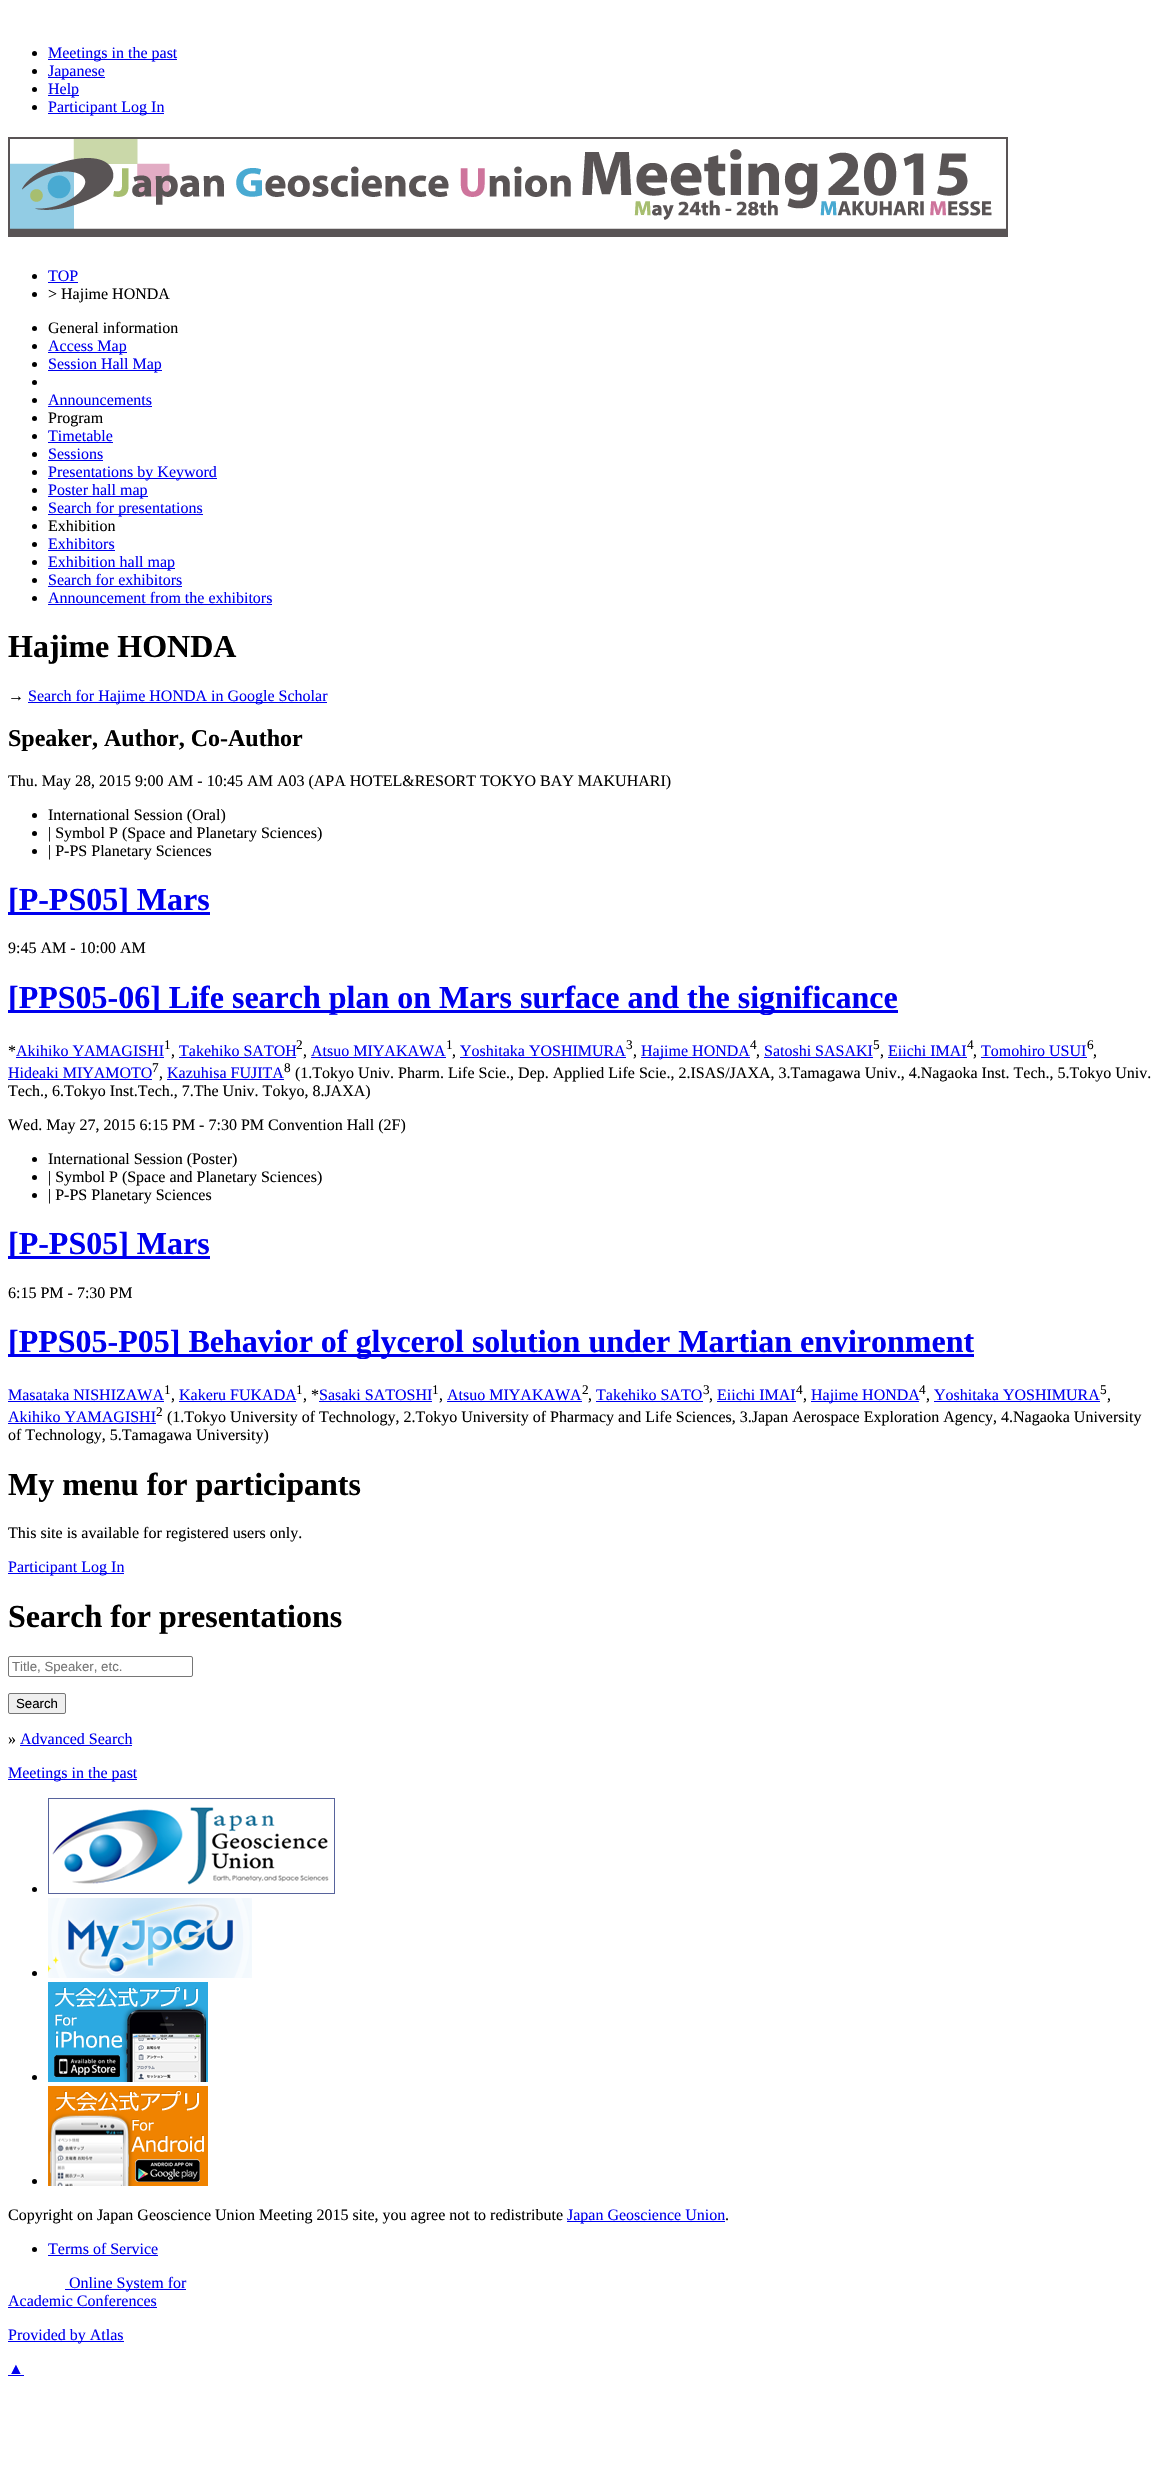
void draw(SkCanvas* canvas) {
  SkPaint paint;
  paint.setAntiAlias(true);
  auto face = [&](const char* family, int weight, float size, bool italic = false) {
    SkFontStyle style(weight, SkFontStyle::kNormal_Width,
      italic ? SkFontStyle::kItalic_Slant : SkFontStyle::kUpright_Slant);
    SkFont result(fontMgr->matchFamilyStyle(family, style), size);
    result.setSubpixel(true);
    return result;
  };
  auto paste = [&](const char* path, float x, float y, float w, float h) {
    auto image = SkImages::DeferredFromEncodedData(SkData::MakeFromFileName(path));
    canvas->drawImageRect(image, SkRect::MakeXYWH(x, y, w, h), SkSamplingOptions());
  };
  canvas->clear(0xffffffff);
  paint.setColor(0xff000000);
  canvas->drawCircle(34.5f, 53.5f, 2.5f, paint);
  paint.setColor(0xff0000ee);
  canvas->drawRect(SkRect::MakeXYWH(48, 59, 129, 1), paint);
  paint.setColor(0xff000000);
  canvas->drawCircle(34.5f, 71.5f, 2.5f, paint);
  paint.setColor(0xff0000ee);
  canvas->drawRect(SkRect::MakeXYWH(48, 77, 57, 1), paint);
  paint.setColor(0xff000000);
  canvas->drawCircle(34.5f, 89.5f, 2.5f, paint);
  paint.setColor(0xff0000ee);
  canvas->drawRect(SkRect::MakeXYWH(48, 95, 31, 1), paint);
  paint.setColor(0xff000000);
  canvas->drawCircle(34.5f, 107.5f, 2.5f, paint);
  paint.setColor(0xff0000ee);
  canvas->drawRect(SkRect::MakeXYWH(48, 113, 116, 1), paint);
  paste("img/1.png", 8, 137, 1000, 100);
  paint.setColor(0xff000000);
  canvas->drawCircle(34.5f, 276.5f, 2.5f, paint);
  paint.setColor(0xff0000ee);
  canvas->drawRect(SkRect::MakeXYWH(48, 282, 30, 1), paint);
  paint.setColor(0xff000000);
  canvas->drawCircle(34.5f, 294.5f, 2.5f, paint);
  canvas->drawCircle(34.5f, 328.5f, 2.5f, paint);
  canvas->drawCircle(34.5f, 346.5f, 2.5f, paint);
  paint.setColor(0xff0000ee);
  canvas->drawRect(SkRect::MakeXYWH(48, 352, 79, 1), paint);
  paint.setColor(0xff000000);
  canvas->drawCircle(34.5f, 364.5f, 2.5f, paint);
  paint.setColor(0xff0000ee);
  canvas->drawRect(SkRect::MakeXYWH(48, 370, 114, 1), paint);
  paint.setColor(0xff000000);
  canvas->drawCircle(34.5f, 382.5f, 2.5f, paint);
  canvas->drawCircle(34.5f, 400.5f, 2.5f, paint);
  paint.setColor(0xff0000ee);
  canvas->drawRect(SkRect::MakeXYWH(48, 406, 104, 1), paint);
  paint.setColor(0xff000000);
  canvas->drawCircle(34.5f, 418.5f, 2.5f, paint);
  canvas->drawCircle(34.5f, 436.5f, 2.5f, paint);
  paint.setColor(0xff0000ee);
  canvas->drawRect(SkRect::MakeXYWH(48, 442, 65, 1), paint);
  paint.setColor(0xff000000);
  canvas->drawCircle(34.5f, 454.5f, 2.5f, paint);
  paint.setColor(0xff0000ee);
  canvas->drawRect(SkRect::MakeXYWH(48, 460, 55, 1), paint);
  paint.setColor(0xff000000);
  canvas->drawCircle(34.5f, 472.5f, 2.5f, paint);
  paint.setColor(0xff0000ee);
  canvas->drawRect(SkRect::MakeXYWH(48, 478, 169, 1), paint);
  paint.setColor(0xff000000);
  canvas->drawCircle(34.5f, 490.5f, 2.5f, paint);
  paint.setColor(0xff0000ee);
  canvas->drawRect(SkRect::MakeXYWH(48, 496, 100, 1), paint);
  paint.setColor(0xff000000);
  canvas->drawCircle(34.5f, 508.5f, 2.5f, paint);
  paint.setColor(0xff0000ee);
  canvas->drawRect(SkRect::MakeXYWH(48, 514, 155, 1), paint);
  paint.setColor(0xff000000);
  canvas->drawCircle(34.5f, 526.5f, 2.5f, paint);
  canvas->drawCircle(34.5f, 544.5f, 2.5f, paint);
  paint.setColor(0xff0000ee);
  canvas->drawRect(SkRect::MakeXYWH(48, 550, 67, 1), paint);
  paint.setColor(0xff000000);
  canvas->drawCircle(34.5f, 562.5f, 2.5f, paint);
  paint.setColor(0xff0000ee);
  canvas->drawRect(SkRect::MakeXYWH(48, 568, 127, 1), paint);
  paint.setColor(0xff000000);
  canvas->drawCircle(34.5f, 580.5f, 2.5f, paint);
  paint.setColor(0xff0000ee);
  canvas->drawRect(SkRect::MakeXYWH(48, 586, 134, 1), paint);
  paint.setColor(0xff000000);
  canvas->drawCircle(34.5f, 598.5f, 2.5f, paint);
  paint.setColor(0xff0000ee);
  canvas->drawRect(SkRect::MakeXYWH(48, 604, 224, 1), paint);
  canvas->drawRect(SkRect::MakeXYWH(28, 702, 299, 1), paint);
  paint.setColor(0xff000000);
  canvas->drawCircle(34.5f, 815.5f, 2.5f, paint);
  canvas->drawCircle(34.5f, 833.5f, 2.5f, paint);
  canvas->drawCircle(34.5f, 851.5f, 2.5f, paint);
  {
    const struct { float x, y, w, h; SkColor color; } items[] = {
      {8, 912, 202, 3, 0xff0000ee},
      {8, 1010, 890, 3, 0xff0000ee},
      {16, 1057, 148, 1, 0xff0000ee},
      {179, 1057, 117, 1, 0xff0000ee},
      {311, 1057, 135, 1, 0xff0000ee},
      {460, 1057, 166, 1, 0xff0000ee},
      {641, 1057, 109, 1, 0xff0000ee},
      {764, 1057, 109, 1, 0xff0000ee},
      {888, 1057, 79, 1, 0xff0000ee},
      {981, 1057, 106, 1, 0xff0000ee},
      {8, 1079, 144, 1, 0xff0000ee},
      {167, 1079, 117, 1, 0xff0000ee},
    };
    for (auto [x, y, w, h, color] : items) {
      paint.setColor(color);
      canvas->drawRect(SkRect::MakeXYWH(x, y, w, h), paint);
    }
  }
  paint.setColor(0xff000000);
  canvas->drawCircle(34.5f, 1159.5f, 2.5f, paint);
  canvas->drawCircle(34.5f, 1177.5f, 2.5f, paint);
  canvas->drawCircle(34.5f, 1195.5f, 2.5f, paint);
  {
    const struct { float x, y, w, h; SkColor color; } items[] = {
      {8, 1256, 202, 3, 0xff0000ee},
      {8, 1354, 966, 3, 0xff0000ee},
      {8, 1401, 156, 1, 0xff0000ee},
      {179, 1401, 117, 1, 0xff0000ee},
      {319, 1401, 113, 1, 0xff0000ee},
      {447, 1401, 135, 1, 0xff0000ee},
      {596, 1401, 107, 1, 0xff0000ee},
      {717, 1401, 79, 1, 0xff0000ee},
      {811, 1401, 108, 1, 0xff0000ee},
      {934, 1401, 166, 1, 0xff0000ee},
      {8, 1423, 148, 1, 0xff0000ee},
      {8, 1573, 116, 1, 0xff0000ee},
    };
    for (auto [x, y, w, h, color] : items) {
      paint.setColor(color);
      canvas->drawRect(SkRect::MakeXYWH(x, y, w, h), paint);
    }
  }
  paint.setStroke(true);
  paint.setStrokeWidth(1);
  paint.setColor(0xff767676);
  canvas->drawRoundRect(SkRect::MakeXYWH(8.5f, 1656.5f, 184, 20), 1.5f, 1.5f, paint);
  paint.setStroke(false);
  paint.setColor(0xffefefef);
  canvas->drawRoundRect(SkRect::MakeXYWH(8.5f, 1693.5f, 57, 20), 1.5f, 1.5f, paint);
  paint.setStroke(true);
  paint.setColor(0xff767676);
  canvas->drawRoundRect(SkRect::MakeXYWH(8.5f, 1693.5f, 57, 20), 1.5f, 1.5f, paint);
  paint.setStroke(false);
  paint.setColor(0xff0000ee);
  canvas->drawRect(SkRect::MakeXYWH(20, 1745, 112, 1), paint);
  canvas->drawRect(SkRect::MakeXYWH(8, 1779, 129, 1), paint);
  paint.setColor(0xff000000);
  canvas->drawCircle(34.5f, 1889.5f, 2.5f, paint);
  paste("img/2.png", 48, 1798, 287, 96);
  canvas->drawCircle(34.5f, 1973.5f, 2.5f, paint);
  paste("img/3.png", 48, 1898, 204, 80);
  canvas->drawCircle(34.5f, 2077.5f, 2.5f, paint);
  paste("img/4.png", 48, 1982, 160, 100);
  canvas->drawCircle(34.5f, 2181.5f, 2.5f, paint);
  paste("img/5.png", 48, 2086, 160, 100);
  paint.setColor(0xff0000ee);
  canvas->drawRect(SkRect::MakeXYWH(567, 2221, 158, 1), paint);
  paint.setColor(0xff000000);
  canvas->drawCircle(34.5f, 2249.5f, 2.5f, paint);
  {
    const struct { float x, y, w, h; SkColor color; } items[] = {
      {48, 2255, 110, 1, 0xff0000ee},
      {65, 2289, 121, 1, 0xff0000ee},
      {8, 2307, 149, 1, 0xff0000ee},
      {8, 2341, 116, 1, 0xff0000ee},
      {8, 2375, 16, 1, 0xff0000ee},
    };
    for (auto [x, y, w, h, color] : items) {
      paint.setColor(color);
      canvas->drawRect(SkRect::MakeXYWH(x, y, w, h), paint);
    }
  }
  auto f0 = face("Liberation Serif", 400, 16);
  {
    const struct { const char* s; float x, y; } items[] = {
      {"Meetings in the past", 48, 58},
      {"Japanese", 48, 76},
      {"Help", 48, 94},
      {"Participant Log In", 48, 112},
      {"TOP", 48, 281},
    };
    for (auto [s, x, y] : items) {
      canvas->drawString(s, x, y, f0, paint);
    }
  }
  paint.setColor(0xff000000);
  canvas->drawString("> Hajime HONDA", 48, 299, f0, paint);
  canvas->drawString("General information", 48, 333, f0, paint);
  paint.setColor(0xff0000ee);
  {
    const struct { const char* s; float x, y; } items[] = {
      {"Access Map", 48, 351},
      {"Session Hall Map", 48, 369},
      {"Announcements", 48, 405},
    };
    for (auto [s, x, y] : items) {
      canvas->drawString(s, x, y, f0, paint);
    }
  }
  paint.setColor(0xff000000);
  canvas->drawString("Program", 48, 423, f0, paint);
  paint.setColor(0xff0000ee);
  {
    const struct { const char* s; float x, y; } items[] = {
      {"Timetable", 48, 441},
      {"Sessions", 48, 459},
      {"Presentations by Keyword", 48, 477},
      {"Poster hall map", 48, 495},
      {"Search for presentations", 48, 513},
    };
    for (auto [s, x, y] : items) {
      canvas->drawString(s, x, y, f0, paint);
    }
  }
  paint.setColor(0xff000000);
  canvas->drawString("Exhibition", 48, 531, f0, paint);
  paint.setColor(0xff0000ee);
  {
    const struct { const char* s; float x, y; } items[] = {
      {"Exhibitors", 48, 549},
      {"Exhibition hall map", 48, 567},
      {"Search for exhibitors", 48, 585},
      {"Announcement from the exhibitors", 48, 603},
    };
    for (auto [s, x, y] : items) {
      canvas->drawString(s, x, y, f0, paint);
    }
  }
  auto f1 = face("Liberation Serif", 700, 32);
  paint.setColor(0xff000000);
  canvas->drawString("Hajime HONDA", 8, 657, f1, paint);
  canvas->drawString("→", 8, 701, f0, paint);
  paint.setColor(0xff0000ee);
  canvas->drawString("Search for Hajime HONDA in Google Scholar", 28, 701, f0, paint);
  auto f2 = face("Liberation Serif", 700, 24);
  paint.setColor(0xff000000);
  canvas->drawString("Speaker, Author, Co-Author", 8, 746, f2, paint);
  {
    const struct { const char* s; float x, y; } items[] = {
      {"Thu. May 28, 2015 9:00 AM - 10:45 AM A03 (APA HOTEL&RESORT TOKYO BAY MAKUHARI)", 8, 786},
      {"International Session (Oral)", 48, 820},
      {"| Symbol P (Space and Planetary Sciences)", 48, 838},
      {"| P-PS Planetary Sciences", 48, 856},
    };
    for (auto [s, x, y] : items) {
      canvas->drawString(s, x, y, f0, paint);
    }
  }
  paint.setColor(0xff0000ee);
  canvas->drawString("[P-PS05] Mars", 8, 910, f1, paint);
  paint.setColor(0xff000000);
  canvas->drawString("9:45 AM - 10:00 AM", 8, 953, f0, paint);
  paint.setColor(0xff0000ee);
  canvas->drawString("[PPS05-06] Life search plan on Mars surface and the significance", 8, 1008, f1, paint);
  paint.setColor(0xff000000);
  canvas->drawString("*", 8, 1056, f0, paint);
  paint.setColor(0xff0000ee);
  canvas->drawString("Akihiko YAMAGISHI", 16, 1056, f0, paint);
  auto f3 = face("Liberation Serif", 400, 13.25f);
  paint.setColor(0xff000000);
  canvas->drawString("1", 164, 1049, f3, paint);
  canvas->drawString(",", 171, 1056, f0, paint);
  paint.setColor(0xff0000ee);
  canvas->drawString("Takehiko SATOH", 179, 1056, f0, paint);
  paint.setColor(0xff000000);
  canvas->drawString("2", 296, 1049, f3, paint);
  canvas->drawString(",", 303, 1056, f0, paint);
  paint.setColor(0xff0000ee);
  canvas->drawString("Atsuo MIYAKAWA", 311, 1056, f0, paint);
  paint.setColor(0xff000000);
  canvas->drawString("1", 446, 1049, f3, paint);
  canvas->drawString(",", 452, 1056, f0, paint);
  paint.setColor(0xff0000ee);
  canvas->drawString("Yoshitaka YOSHIMURA", 460, 1056, f0, paint);
  paint.setColor(0xff000000);
  canvas->drawString("3", 626, 1049, f3, paint);
  canvas->drawString(",", 633, 1056, f0, paint);
  paint.setColor(0xff0000ee);
  canvas->drawString("Hajime HONDA", 641, 1056, f0, paint);
  paint.setColor(0xff000000);
  canvas->drawString("4", 750, 1049, f3, paint);
  canvas->drawString(",", 756, 1056, f0, paint);
  paint.setColor(0xff0000ee);
  canvas->drawString("Satoshi SASAKI", 764, 1056, f0, paint);
  paint.setColor(0xff000000);
  canvas->drawString("5", 873, 1049, f3, paint);
  canvas->drawString(",", 880, 1056, f0, paint);
  paint.setColor(0xff0000ee);
  canvas->drawString("Eiichi IMAI", 888, 1056, f0, paint);
  paint.setColor(0xff000000);
  canvas->drawString("4", 967, 1049, f3, paint);
  canvas->drawString(",", 973, 1056, f0, paint);
  paint.setColor(0xff0000ee);
  canvas->drawString("Tomohiro USUI", 981, 1056, f0, paint);
  paint.setColor(0xff000000);
  canvas->drawString("6", 1087, 1049, f3, paint);
  canvas->drawString(",", 1093, 1056, f0, paint);
  paint.setColor(0xff0000ee);
  canvas->drawString("Hideaki MIYAMOTO", 8, 1078, f0, paint);
  paint.setColor(0xff000000);
  canvas->drawString("7", 152, 1072, f3, paint);
  canvas->drawString(",", 159, 1078, f0, paint);
  paint.setColor(0xff0000ee);
  canvas->drawString("Kazuhisa FUJITA", 167, 1078, f0, paint);
  paint.setColor(0xff000000);
  canvas->drawString("8", 284, 1072, f3, paint);
  {
    const struct { const char* s; float x, y; } items[] = {
      {"(1.Tokyo Univ. Pharm. Life Scie., Dep. Applied Life Scie., 2.ISAS/JAXA, 3.Tamagawa Univ., 4.Nagaoka Inst. Tech., 5.Tokyo Univ.", 295, 1078},
      {"Tech., 6.Tokyo Inst.Tech., 7.The Univ. Tokyo, 8.JAXA)", 8, 1096},
      {"Wed. May 27, 2015 6:15 PM - 7:30 PM Convention Hall (2F)", 8, 1130},
      {"International Session (Poster)", 48, 1164},
      {"| Symbol P (Space and Planetary Sciences)", 48, 1182},
      {"| P-PS Planetary Sciences", 48, 1200},
    };
    for (auto [s, x, y] : items) {
      canvas->drawString(s, x, y, f0, paint);
    }
  }
  paint.setColor(0xff0000ee);
  canvas->drawString("[P-PS05] Mars", 8, 1254, f1, paint);
  paint.setColor(0xff000000);
  canvas->drawString("6:15 PM - 7:30 PM", 8, 1298, f0, paint);
  paint.setColor(0xff0000ee);
  canvas->drawString("[PPS05-P05] Behavior of glycerol solution under Martian environment", 8, 1352, f1, paint);
  canvas->drawString("Masataka NISHIZAWA", 8, 1400, f0, paint);
  paint.setColor(0xff000000);
  canvas->drawString("1", 164, 1394, f3, paint);
  canvas->drawString(",", 171, 1400, f0, paint);
  paint.setColor(0xff0000ee);
  canvas->drawString("Kakeru FUKADA", 179, 1400, f0, paint);
  paint.setColor(0xff000000);
  canvas->drawString("1", 296, 1394, f3, paint);
  canvas->drawString(", *", 303, 1400, f0, paint);
  paint.setColor(0xff0000ee);
  canvas->drawString("Sasaki SATOSHI", 319, 1400, f0, paint);
  paint.setColor(0xff000000);
  canvas->drawString("1", 432, 1394, f3, paint);
  canvas->drawString(",", 439, 1400, f0, paint);
  paint.setColor(0xff0000ee);
  canvas->drawString("Atsuo MIYAKAWA", 447, 1400, f0, paint);
  paint.setColor(0xff000000);
  canvas->drawString("2", 582, 1394, f3, paint);
  canvas->drawString(",", 588, 1400, f0, paint);
  paint.setColor(0xff0000ee);
  canvas->drawString("Takehiko SATO", 596, 1400, f0, paint);
  paint.setColor(0xff000000);
  canvas->drawString("3", 703, 1394, f3, paint);
  canvas->drawString(",", 709, 1400, f0, paint);
  paint.setColor(0xff0000ee);
  canvas->drawString("Eiichi IMAI", 717, 1400, f0, paint);
  paint.setColor(0xff000000);
  canvas->drawString("4", 796, 1394, f3, paint);
  canvas->drawString(",", 803, 1400, f0, paint);
  paint.setColor(0xff0000ee);
  canvas->drawString("Hajime HONDA", 811, 1400, f0, paint);
  paint.setColor(0xff000000);
  canvas->drawString("4", 919, 1394, f3, paint);
  canvas->drawString(",", 926, 1400, f0, paint);
  paint.setColor(0xff0000ee);
  canvas->drawString("Yoshitaka YOSHIMURA", 934, 1400, f0, paint);
  paint.setColor(0xff000000);
  canvas->drawString("5", 1100, 1394, f3, paint);
  canvas->drawString(",", 1107, 1400, f0, paint);
  paint.setColor(0xff0000ee);
  canvas->drawString("Akihiko YAMAGISHI", 8, 1422, f0, paint);
  paint.setColor(0xff000000);
  canvas->drawString("2", 156, 1416, f3, paint);
  canvas->drawString("(1.Tokyo University of Technology, 2.Tokyo University of Pharmacy and Life Sciences, 3.Japan Aerospace Exploration Agency, 4.Nagaoka University", 167, 1422, f0, paint);
  canvas->drawString("of Technology, 5.Tamagawa University)", 8, 1440, f0, paint);
  canvas->drawString("My menu for participants", 8, 1495, f1, paint);
  canvas->drawString("This site is available for registered users only.", 8, 1538, f0, paint);
  paint.setColor(0xff0000ee);
  canvas->drawString("Participant Log In", 8, 1572, f0, paint);
  paint.setColor(0xff000000);
  canvas->drawString("Search for presentations", 8, 1627, f1, paint);
  auto f4 = face("Liberation Sans", 400, 13.25f);
  paint.setColor(0xff757575);
  canvas->drawString("Title, Speaker, etc.", 12, 1671, f4, paint);
  paint.setColor(0xff000000);
  canvas->drawString("Search", 16, 1708, f4, paint);
  canvas->drawString("»", 8, 1744, f0, paint);
  paint.setColor(0xff0000ee);
  canvas->drawString("Advanced Search", 20, 1744, f0, paint);
  canvas->drawString("Meetings in the past", 8, 1778, f0, paint);
  paint.setColor(0xff000000);
  canvas->drawString("Copyright on Japan Geoscience Union Meeting 2015 site, you agree not to redistribute", 8, 2220, f0, paint);
  paint.setColor(0xff0000ee);
  canvas->drawString("Japan Geoscience Union", 567, 2220, f0, paint);
  paint.setColor(0xff000000);
  canvas->drawString(".", 725, 2220, f0, paint);
  paint.setColor(0xff0000ee);
  {
    const struct { const char* s; float x, y; } items[] = {
      {"Terms of Service", 48, 2254},
      {"Online System for", 69, 2288},
      {"Academic Conferences", 8, 2306},
      {"Provided by Atlas", 8, 2340},
      {"▲", 8, 2374},
    };
    for (auto [s, x, y] : items) {
      canvas->drawString(s, x, y, f0, paint);
    }
  }
}
